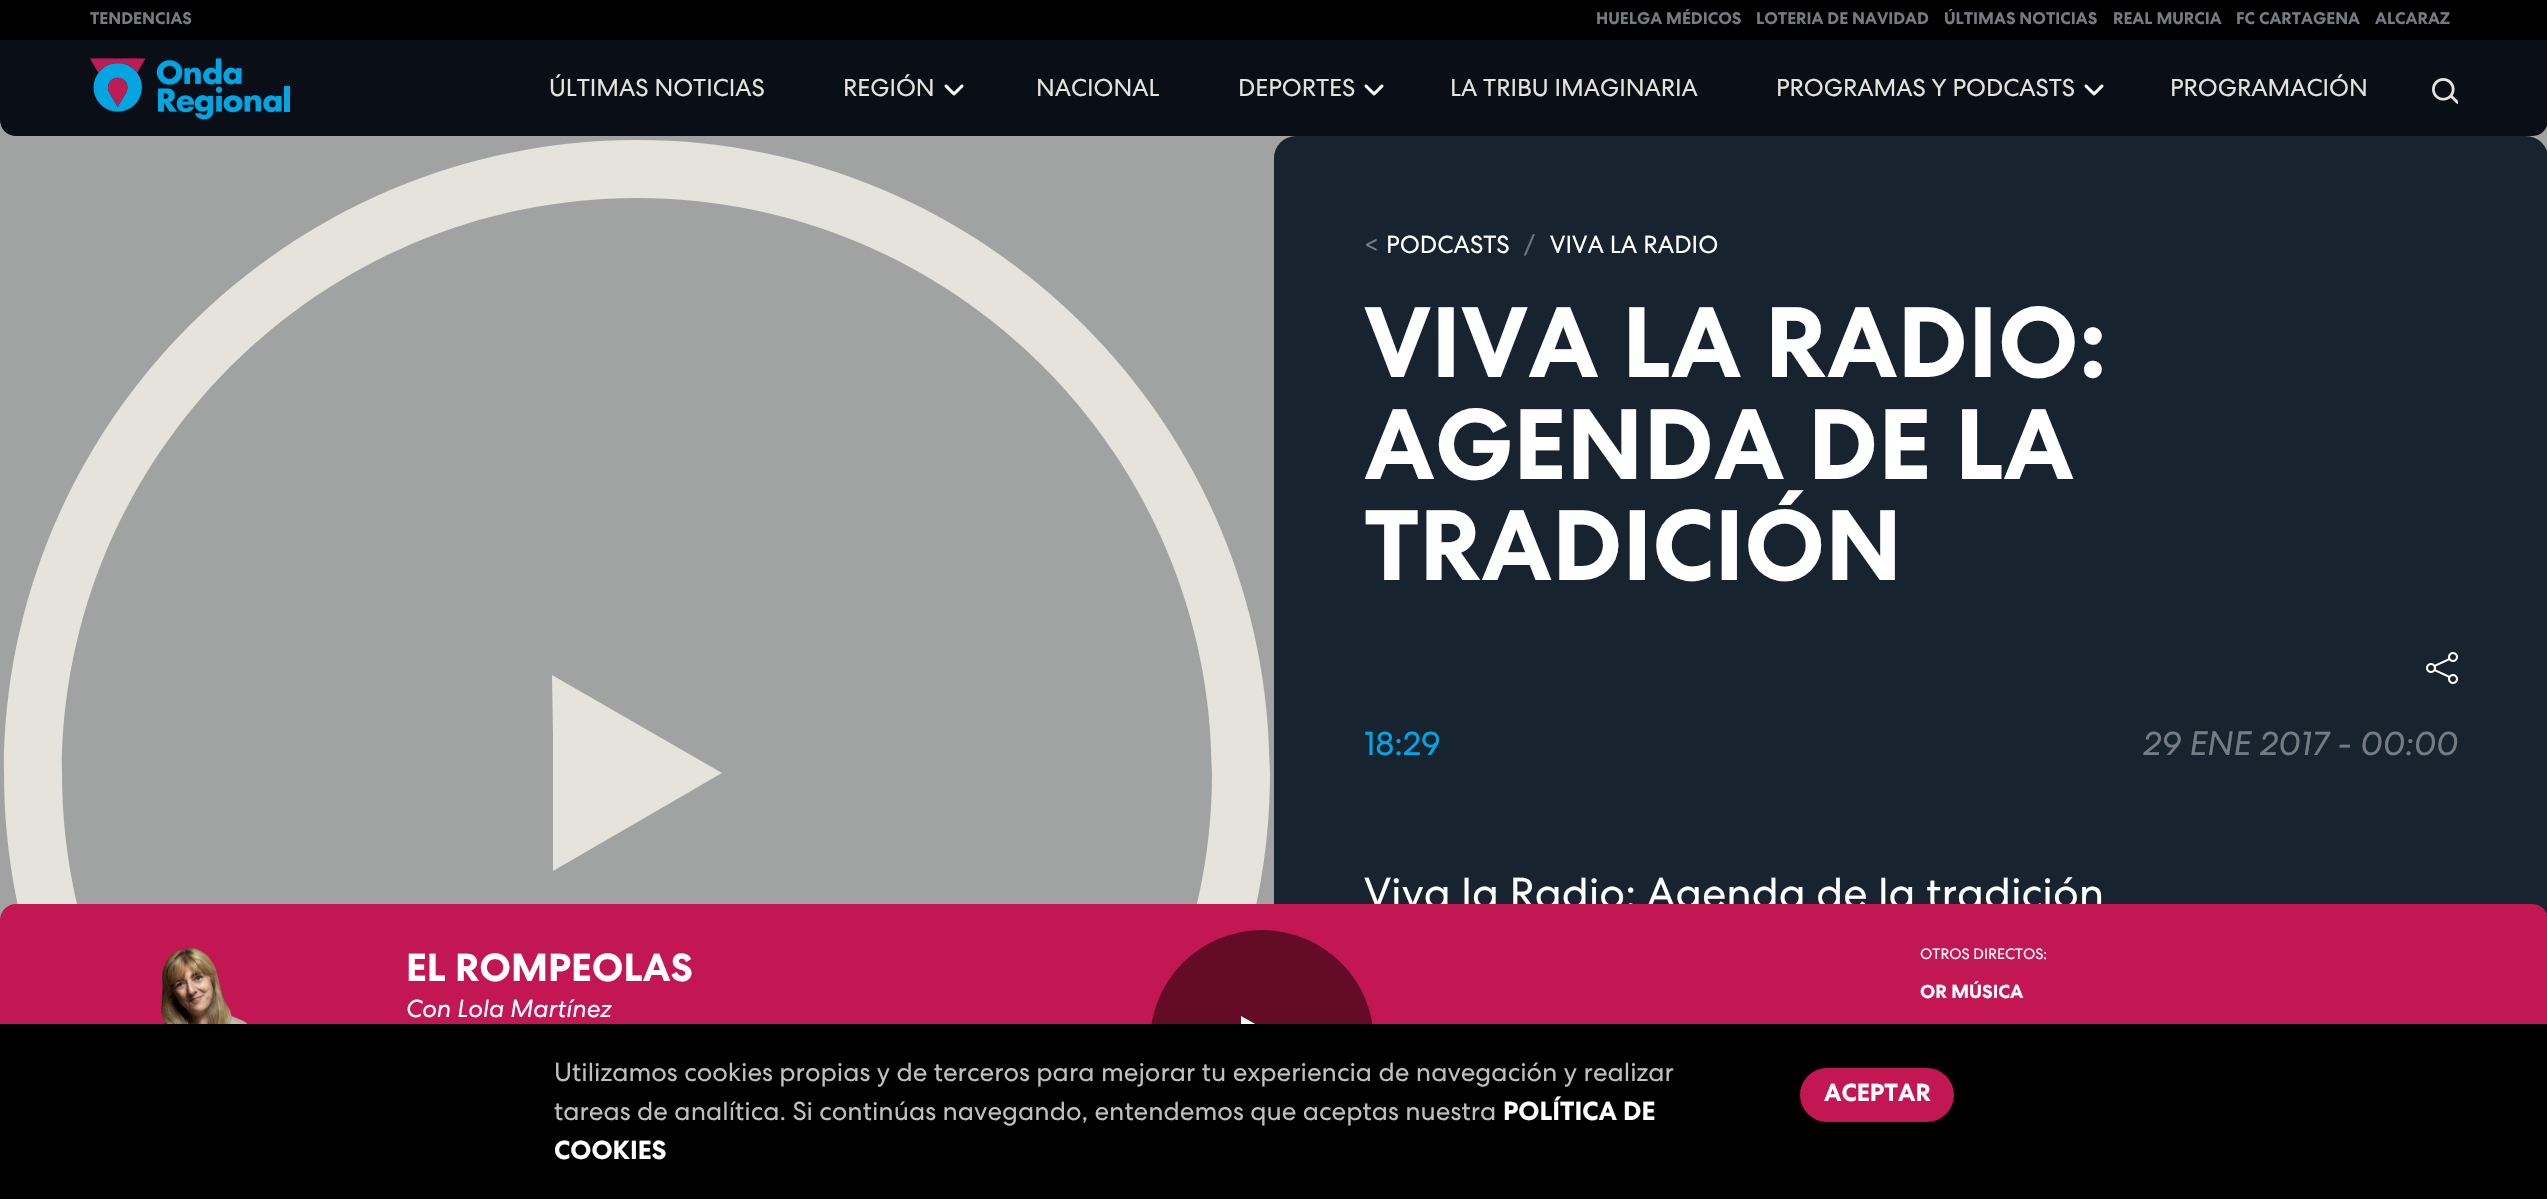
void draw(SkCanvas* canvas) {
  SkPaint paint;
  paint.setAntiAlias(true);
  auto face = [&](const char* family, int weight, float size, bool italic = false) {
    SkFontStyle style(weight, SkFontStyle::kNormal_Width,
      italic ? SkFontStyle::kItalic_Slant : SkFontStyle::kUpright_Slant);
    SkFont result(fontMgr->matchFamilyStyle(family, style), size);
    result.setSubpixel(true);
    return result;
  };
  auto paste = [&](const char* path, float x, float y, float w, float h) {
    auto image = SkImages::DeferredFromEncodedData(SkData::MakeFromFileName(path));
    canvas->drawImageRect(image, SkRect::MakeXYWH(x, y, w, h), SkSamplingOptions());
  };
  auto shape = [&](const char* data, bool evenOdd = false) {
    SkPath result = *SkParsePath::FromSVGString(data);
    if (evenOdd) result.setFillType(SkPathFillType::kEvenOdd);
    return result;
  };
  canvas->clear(0xffa1a3a3);
  paint.setColor(0xff000000);
  canvas->drawRect(SkRect::MakeXYWH(0, 0, 2547, 40), paint);
  paint.setColor(0xff0a0f17);
  canvas->drawPath(shape("M0 40H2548V120C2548 129 2541 136 2532 136H16C7 136 0 129 0 120Z"), paint);
  paste("img/1.png", 90, 58, 200, 62);
  paste("img/2.png", 944, 84, 20, 12);
  paste("img/2.png", 1364, 84, 20, 12);
  paste("img/2.png", 2084, 84, 20, 12);
  paste("img/3.png", 2432, 78, 26, 26);
  paint.setColor(0xffe6e2dc);
  canvas->drawPath(shape("M637 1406C288 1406 4 1122 4 773C4 424 288 140 637 140C986 140 1270 424 1270 773C1270 1122 986 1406 637 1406ZM637 198C320 198 62 456 62 773C62 1090 320 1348 637 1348C954 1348 1212 1090 1212 773C1212 456 954 198 637 198Z"), paint);
  canvas->drawPath(shape("M552 675L722 773L553 871V735L552 675"), paint);
  paint.setColor(0xff17242f);
  canvas->drawRoundRect(SkRect::MakeXYWH(1274, 136, 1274, 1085), 22, 22, paint);
  paste("img/4.png", 2426, 652, 32, 32);
  auto f0 = face("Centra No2", 700, 16.75f);
  paint.setColor(0xff747c82);
  {
    const struct { const char* s; float x, y; } items[] = {
      {"TENDENCIAS", 90, 24},
      {"HUELGA MÉDICOS", 1596, 24},
      {"LOTERIA DE NAVIDAD", 1756, 24},
      {"ÚLTIMAS NOTICIAS", 1944, 24},
      {"REAL MURCIA", 2113, 24},
      {"FC CARTAGENA", 2236, 24},
      {"ALCARAZ", 2375, 24},
    };
    for (auto [s, x, y] : items) {
      canvas->drawString(s, x, y, f0, paint);
    }
  }
  auto f1 = face("Centra No2", 400, 24.25f);
  paint.setColor(0xffe6e2dc);
  {
    const struct { const char* s; float x, y; } items[] = {
      {"ÚLTIMAS NOTICIAS", 549, 96},
      {"REGIÓN", 843, 96},
      {"NACIONAL", 1036, 96},
      {"DEPORTES", 1238, 96},
      {"LA TRIBU IMAGINARIA", 1450, 96},
      {"PROGRAMAS Y PODCASTS", 1776, 96},
      {"PROGRAMACIÓN", 2170, 96},
    };
    for (auto [s, x, y] : items) {
      canvas->drawString(s, x, y, f1, paint);
    }
  }
  auto f2 = face("Centra No2", 400, 24.5f);
  paint.setColor(0xff747c82);
  canvas->drawString("<", 1364, 253, f2, paint);
  paint.setColor(0xffffffff);
  canvas->drawString("PODCASTS", 1386, 253, f2, paint);
  paint.setColor(0xff6c757d);
  canvas->drawString("/", 1524, 253, f2, paint);
  paint.setColor(0xffffffff);
  canvas->drawString("VIVA LA RADIO", 1550, 253, f2, paint);
  auto f3 = face("Centra No2", 700, 99.5f);
  {
    const struct { const char* s; float x, y; } items[] = {
      {"VIVA LA RADIO:", 1364, 377},
      {"AGENDA DE LA", 1364, 479},
      {"TRADICIÓN", 1364, 580},
    };
    for (auto [s, x, y] : items) {
      canvas->drawString(s, x, y, f3, paint);
    }
  }
  auto f4 = face("Centra No2", 400, 33.75f);
  paint.setColor(0xff00a5e2);
  canvas->drawString("18:29", 1364, 755, f4, paint);
  auto f5 = face("Centra No2", 400, 33.75f, true);
  paint.setColor(0xff747c82);
  canvas->drawString("29 ENE 2017 - 00:00", 2143, 755, f5, paint);
  auto f6 = face("Centra No2", 400, 43.1f);
  paint.setColor(0xffffffff);
  canvas->drawString("Viva la Radio: Agenda de la tradición", 1364, 908, f6, paint);
  paint.setColor(0xffc21753);
  canvas->drawPath(shape("M16 904H2532C2541 904 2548 911 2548 920V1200H0V920C0 911 7 904 16 904Z"), paint);
  paste("img/5.png", 161, 947, 87, 77);
  auto f7 = face("Centra No2", 700, 39);
  paint.setColor(0xffffffff);
  canvas->drawString("EL ROMPEOLAS", 406, 981, f7, paint);
  auto f8 = face("Centra No2", 400, 24.5f, true);
  canvas->drawString("Con Lola Martínez", 406, 1017, f8, paint);
  paint.setColor(0xff640b28);
  canvas->drawRoundRect(SkRect::MakeXYWH(1150, 930, 224, 226), 112, 112, paint);
  paint.setColor(0xffffffff);
  canvas->drawPath(shape("M1241 1016L1289 1043L1241 1071Z"), paint);
  auto f9 = face("Centra No2", 400, 15);
  canvas->drawString("OTROS DIRECTOS:", 1920, 959, f9, paint);
  auto f10 = face("Centra No2", 700, 18.75f);
  canvas->drawString("OR MÚSICA", 1920, 998, f10, paint);
  paint.setColor(0xff000000);
  canvas->drawRect(SkRect::MakeXYWH(0, 1024, 2547, 175), paint);
  auto f11 = face("Centra No2", 400, 26);
  paint.setColor(0xffbfbfbf);
  canvas->drawString("Utilizamos cookies propias y de terceros para mejorar tu experiencia de navegación y realizar", 554, 1081, f11, paint);
  canvas->drawString("tareas de analítica. Si continúas navegando, entendemos que aceptas nuestra", 554, 1120, f11, paint);
  auto f12 = face("Centra No2", 700, 26);
  paint.setColor(0xffffffff);
  canvas->drawString("POLÍTICA DE", 1503, 1120, f12, paint);
  canvas->drawString("COOKIES", 554, 1159, f12, paint);
  paint.setColor(0xffc21753);
  canvas->drawRoundRect(SkRect::MakeXYWH(1800, 1068, 154, 54), 27, 27, paint);
  auto f13 = face("Centra No2", 700, 24.5f);
  paint.setColor(0xffffffff);
  canvas->drawString("ACEPTAR", 1824, 1101, f13, paint);
}
